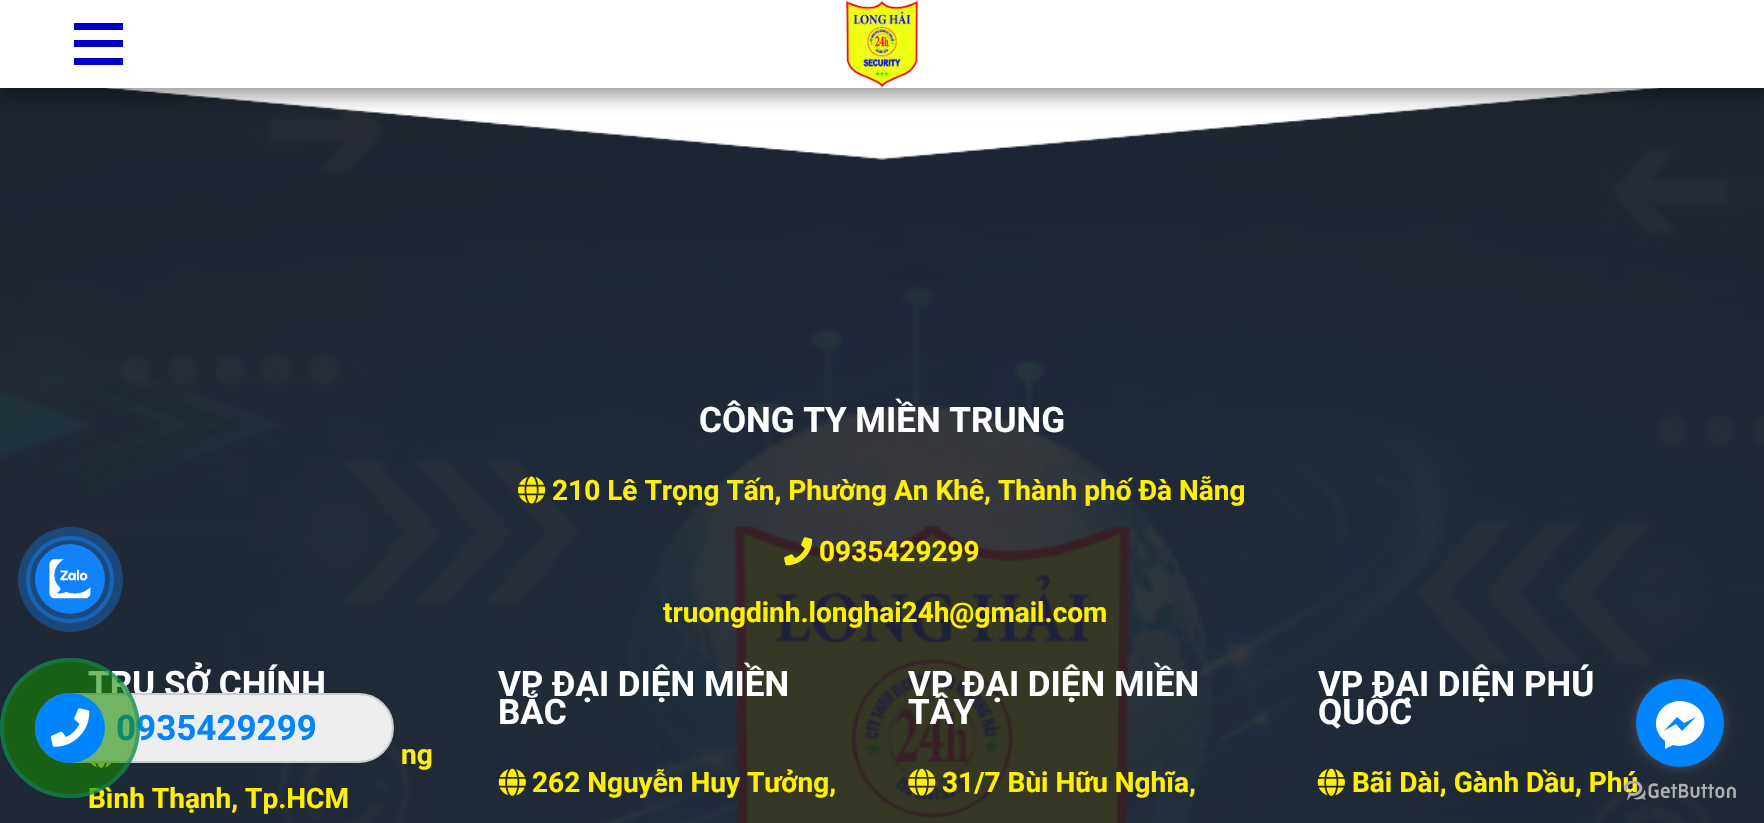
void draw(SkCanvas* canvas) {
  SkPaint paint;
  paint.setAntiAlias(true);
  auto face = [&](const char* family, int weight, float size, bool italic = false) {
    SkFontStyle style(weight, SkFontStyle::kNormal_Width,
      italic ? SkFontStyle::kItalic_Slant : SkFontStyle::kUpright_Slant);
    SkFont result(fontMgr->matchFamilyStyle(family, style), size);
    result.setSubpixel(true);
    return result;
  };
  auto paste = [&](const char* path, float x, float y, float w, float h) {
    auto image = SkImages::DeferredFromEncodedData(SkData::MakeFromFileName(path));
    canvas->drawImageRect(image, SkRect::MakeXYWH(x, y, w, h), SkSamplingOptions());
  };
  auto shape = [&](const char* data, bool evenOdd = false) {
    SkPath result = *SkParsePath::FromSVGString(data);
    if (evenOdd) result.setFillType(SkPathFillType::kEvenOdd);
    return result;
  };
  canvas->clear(0xffffffff);
  paste("img/3.png", 0, 88, 1764, 735);
  paint.setStroke(true);
  paint.setStrokeWidth(4);
  paint.setColor(0xff185598);
  canvas->drawRoundRect(SkRect::MakeXYWH(28, 538, 84, 83), 41.5f, 41.5f, paint);
  paint.setStroke(false);
  paint.setColor(0x571182fc);
  canvas->drawCircle(70.5f, 579.5f, 52.5f, paint);
  paint.setColor(0xff1182fc);
  canvas->drawCircle(70, 579, 35, paint);
  paste("img/1.png", 49, 559, 42, 40);
  paste("img/4.png", 104, 88, 1556, 72);
  paint.setColor(0x66000000);
  paint.setMaskFilter(SkMaskFilter::MakeBlur(kNormal_SkBlurStyle, 9));
  canvas->drawRect(SkRect::MakeXYWH(2, 9, 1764, 87), paint);
  paint.setMaskFilter(nullptr);
  {
    const struct { float x, y, w, h; SkColor color; } items[] = {
      {0, 0, 1764, 88, 0xffffffff},
      {74, 23, 49, 7, 0xff0000cc},
      {74, 40, 49, 7, 0xff0000cc},
      {74, 58, 49, 7, 0xff0000cc},
    };
    for (auto [x, y, w, h, color] : items) {
      paint.setColor(color);
      canvas->drawRect(SkRect::MakeXYWH(x, y, w, h), paint);
    }
  }
  paste("img/2.png", 846, 0, 73, 88);
  paste("img/5.png", 518, 476, 28, 28);
  paste("img/6.png", 784, 537, 29, 29);
  paste("img/7.png", 90, 763, 22, 5);
  paste("img/8.png", 498, 768, 28, 28);
  paste("img/9.png", 908, 768, 28, 28);
  paste("img/10.png", 1317, 768, 28, 28);
  auto f0 = face("Roboto", 700, 35);
  paint.setColor(0xffffffff);
  canvas->drawString("CÔNG TY MIỀN TRUNG", 699, 432, f0, paint);
  auto f1 = face("Roboto", 700, 28);
  paint.setColor(0xfffff000);
  {
    const struct { const char* s; float x, y; } items[] = {
      {"210 Lê Trọng Tấn, Phường An Khê, Thành phố Đà Nẵng", 552, 500},
      {"0935429299", 819, 561},
      {"truongdinh.longhai24h@gmail.com", 663, 622},
    };
    for (auto [s, x, y] : items) {
      canvas->drawString(s, x, y, f1, paint);
    }
  }
  paint.setColor(0xffffffff);
  canvas->drawString("TRỤ SỞ CHÍNH", 88, 696, f0, paint);
  paint.setColor(0xfffff000);
  canvas->drawString("ng", 401, 764, f1, paint);
  canvas->drawString("Bình Thạnh, Tp.HCM", 88, 808, f1, paint);
  paint.setColor(0xffffffff);
  canvas->drawString("VP ĐẠI DIỆN MIỀN", 498, 696, f0, paint);
  canvas->drawString("BẮC", 498, 724, f0, paint);
  paint.setColor(0xfffff000);
  canvas->drawString("262 Nguyễn Huy Tưởng,", 532, 792, f1, paint);
  paint.setColor(0xffffffff);
  canvas->drawString("VP ĐẠI DIỆN MIỀN", 908, 696, f0, paint);
  canvas->drawString("TÂY", 908, 724, f0, paint);
  paint.setColor(0xfffff000);
  canvas->drawString("31/7 Bùi Hữu Nghĩa,", 942, 792, f1, paint);
  paint.setColor(0xffffffff);
  canvas->drawString("VP ĐẠI DIỆN PHÚ", 1318, 696, f0, paint);
  canvas->drawString("QUỐC", 1318, 724, f0, paint);
  paint.setColor(0xfffff000);
  canvas->drawString("Bãi Dài, Gành Dầu, Phú", 1352, 792, f1, paint);
  paint.setColor(0xffeeeeee);
  canvas->drawRoundRect(SkRect::MakeXYWH(36, 694, 357, 68), 34, 34, paint);
  paint.setStroke(true);
  paint.setStrokeWidth(2);
  paint.setColor(0xffcccccc);
  canvas->drawRoundRect(SkRect::MakeXYWH(36, 694, 357, 68), 34, 34, paint);
  paint.setStroke(false);
  paint.setColor(0xff0084ff);
  canvas->drawString("0935429299", 116, 740, f0, paint);
  paint.setStroke(true);
  paint.setStrokeWidth(4);
  paint.setColor(0x800084ff);
  canvas->drawCircle(70, 728, 68, paint);
  paint.setStroke(false);
  paint.setColor(0x94158900);
  canvas->drawCircle(70, 728, 70, paint);
  paint.setColor(0xff0084ff);
  canvas->drawCircle(70, 728, 35, paint);
  paste("img/11.png", 50, 708, 40, 39);
  paste("img/12.png", 1624, 781, 112, 19);
  paint.setColor(0x66888888);
  paint.setMaskFilter(SkMaskFilter::MakeBlur(kNormal_SkBlurStyle, 6));
  canvas->drawRoundRect(SkRect::MakeXYWH(1636, 681, 88, 87), 43.5f, 43.5f, paint);
  paint.setMaskFilter(nullptr);
  paint.setColor(0xff0084ff);
  canvas->drawCircle(1680, 723, 44, paint);
  paint.setColor(0xffffffff);
  canvas->drawPath(shape("M1680 701C1658 701 1647 727 1665 741V749L1673 745C1695 751 1716 725 1697 707C1692 703 1686 701 1680 701ZM1682 731L1676 724L1664 731L1677 717L1684 723L1696 717Z"), paint);
}
